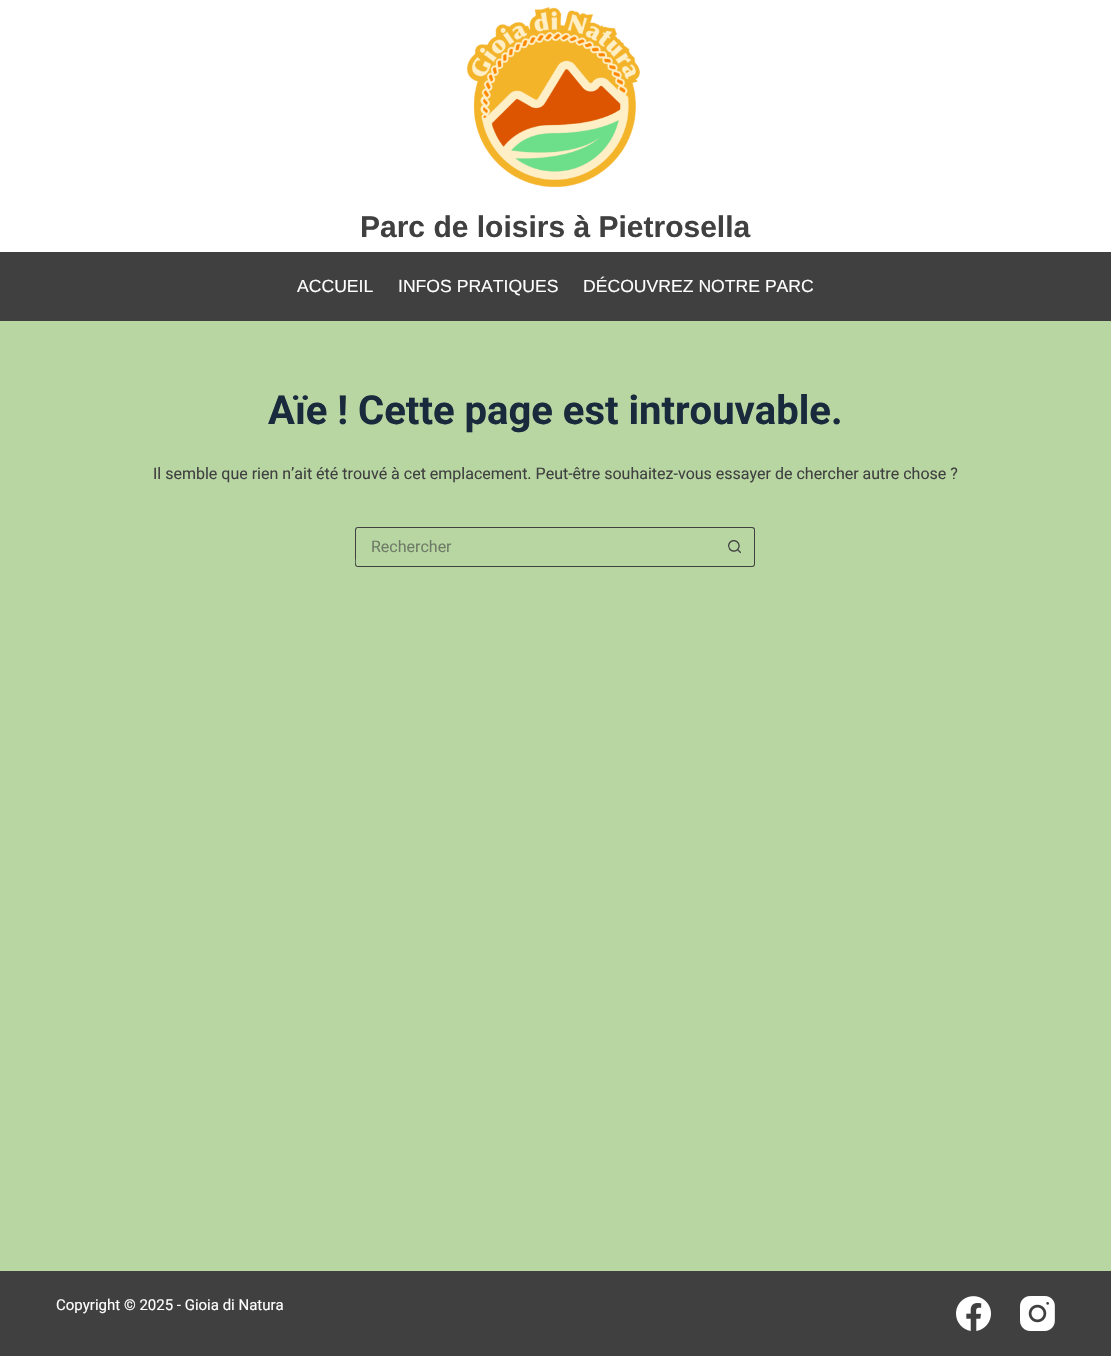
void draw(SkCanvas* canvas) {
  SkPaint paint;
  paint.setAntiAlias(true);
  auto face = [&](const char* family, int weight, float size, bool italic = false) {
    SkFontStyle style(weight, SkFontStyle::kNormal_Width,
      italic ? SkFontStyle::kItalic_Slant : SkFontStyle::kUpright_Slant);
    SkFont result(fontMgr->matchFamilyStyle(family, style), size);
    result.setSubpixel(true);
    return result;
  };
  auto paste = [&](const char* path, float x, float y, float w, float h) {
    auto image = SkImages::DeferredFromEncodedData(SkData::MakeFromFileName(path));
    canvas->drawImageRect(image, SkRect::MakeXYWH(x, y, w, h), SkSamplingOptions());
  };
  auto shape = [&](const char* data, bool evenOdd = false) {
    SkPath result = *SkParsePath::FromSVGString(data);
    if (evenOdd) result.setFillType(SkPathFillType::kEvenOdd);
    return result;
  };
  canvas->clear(0xffb7d6a2);
  paint.setColor(0xffffffff);
  canvas->drawRect(SkRect::MakeXYWH(0, 0, 1111, 252), paint);
  paste("img/1.png", 466, 7, 175, 181);
  paint.setColor(0xff404040);
  canvas->drawRect(SkRect::MakeXYWH(0, 252, 1111, 69), paint);
  canvas->drawPath(shape("M358 527H715V567H358C356 567 355 566 355 564V530C355 528 356 527 358 527ZM358 528H715V566H357C355 564 356 559 356 558V530L357 528Z", true), paint);
  canvas->drawPath(shape("M715 527H752C754 527 755 528 755 530V564C755 566 754 567 752 567H715ZM715 528H752C753 528 754 529 754 530V564C754 565 753 566 752 566H715Z", true), paint);
  paste("img/2.png", 728, 540, 13, 13);
  paint.setStroke(true);
  paint.setStrokeWidth(1.5f);
  paint.setStrokeCap(SkPaint::kRound_Cap);
  paint.setColor(0xffb7d6a2);
  canvas->drawPath(shape("M735 554.5C731 554.5 727.5 551 727.5 547"), paint);
  paint.setStroke(false);
  paint.setColor(0xff404040);
  canvas->drawRect(SkRect::MakeXYWH(0, 1271, 1111, 85), paint);
  paste("img/3.png", 956, 1296, 35, 35);
  paste("img/4.png", 1020, 1296, 35, 35);
  auto f0 = face("Liberation Sans", 700, 30);
  canvas->drawString("Parc de loisirs à Pietrosella", 360, 237, f0, paint);
  auto f1 = face("Liberation Sans", 400, 17.6f);
  paint.setColor(0xffffffff);
  {
    const struct { const char* s; float x, y; } items[] = {
      {"ACCUEIL", 297, 292},
      {"INFOS PRATIQUES", 398, 292},
      {"DÉCOUVREZ NOTRE PARC", 583, 292},
    };
    for (auto [s, x, y] : items) {
      canvas->drawString(s, x, y, f1, paint);
    }
  }
  auto f2 = face("Roboto", 700, 40);
  paint.setColor(0xff192a3d);
  canvas->drawString("Aïe ! Cette page est introuvable.", 268, 424, f2, paint);
  auto f3 = face("Roboto", 400, 16);
  paint.setColor(0xff404040);
  canvas->drawString("Il semble que rien n’ait été trouvé à cet emplacement. Peut-être souhaitez-vous essayer de chercher autre chose ?", 153, 479, f3, paint);
  paint.setColor(0xff707c67);
  canvas->drawString("Rechercher", 371, 552, f3, paint);
  auto f4 = face("Roboto", 400, 15);
  paint.setColor(0xffffffff);
  canvas->drawString("Copyright © 2025 - Gioia di Natura", 56, 1310, f4, paint);
}
